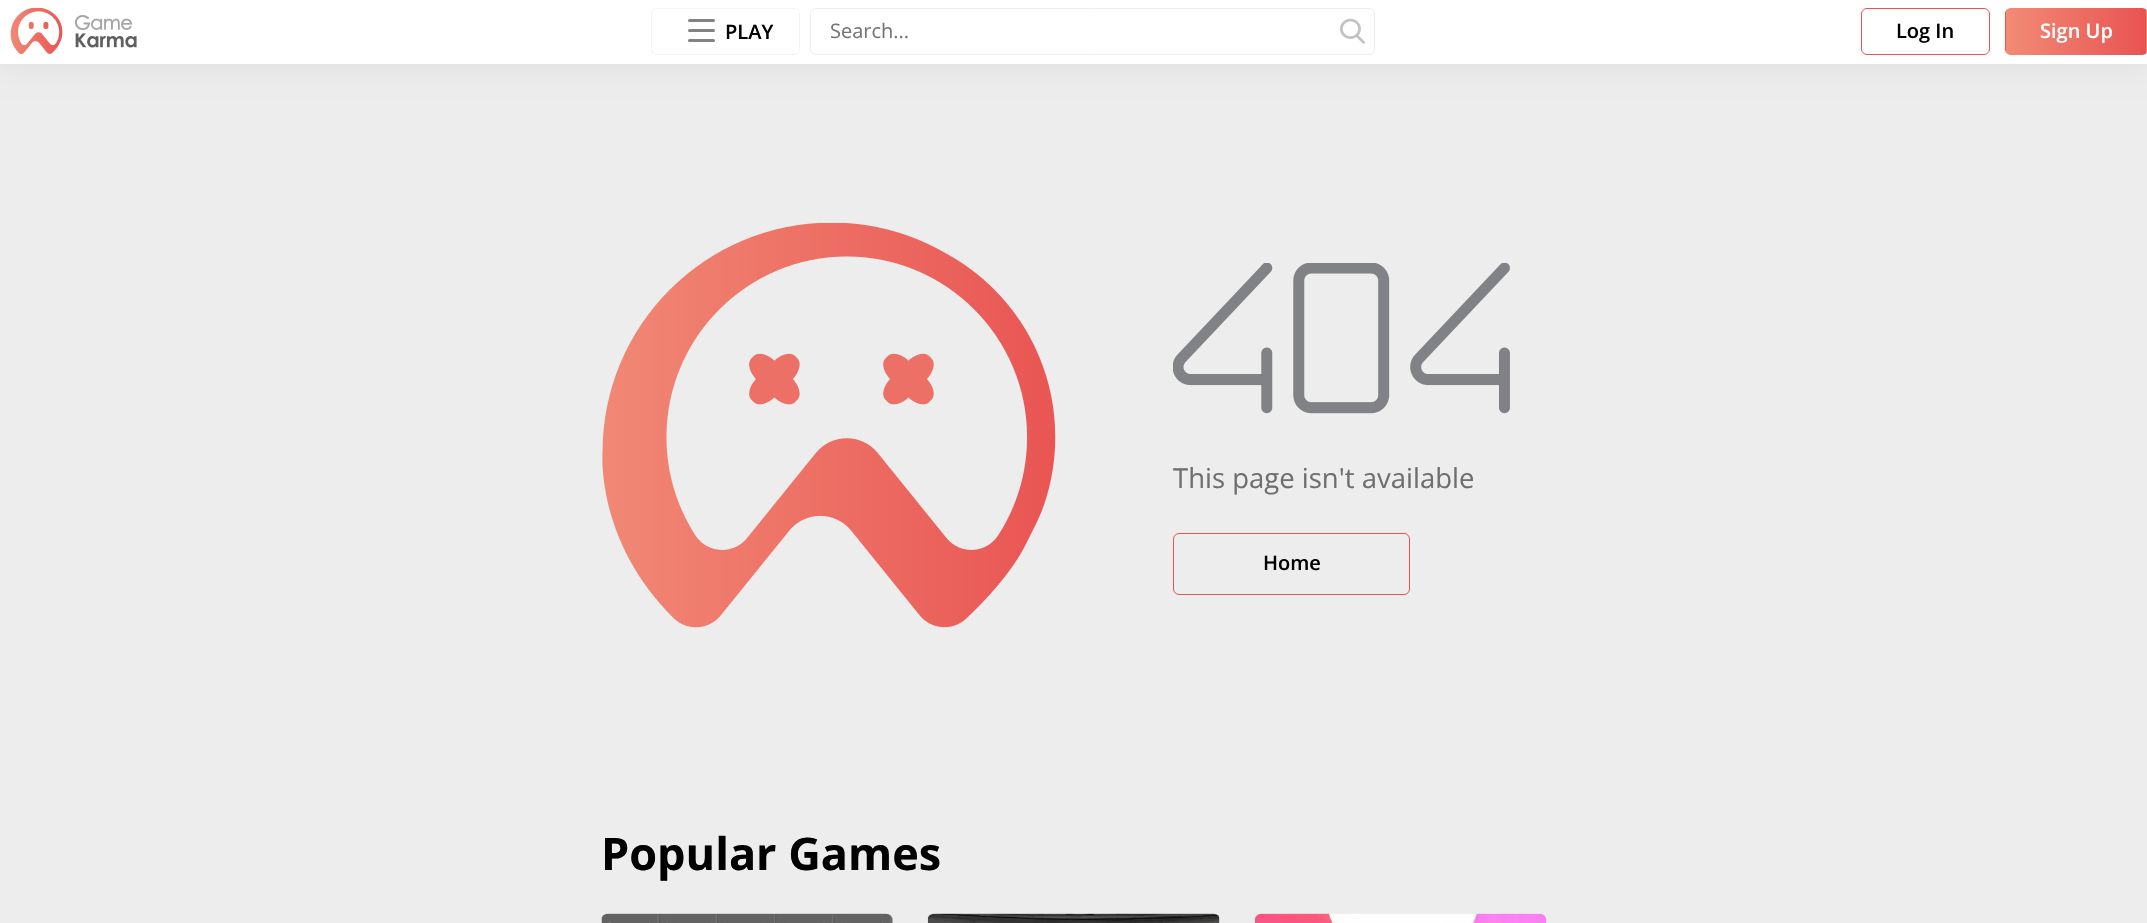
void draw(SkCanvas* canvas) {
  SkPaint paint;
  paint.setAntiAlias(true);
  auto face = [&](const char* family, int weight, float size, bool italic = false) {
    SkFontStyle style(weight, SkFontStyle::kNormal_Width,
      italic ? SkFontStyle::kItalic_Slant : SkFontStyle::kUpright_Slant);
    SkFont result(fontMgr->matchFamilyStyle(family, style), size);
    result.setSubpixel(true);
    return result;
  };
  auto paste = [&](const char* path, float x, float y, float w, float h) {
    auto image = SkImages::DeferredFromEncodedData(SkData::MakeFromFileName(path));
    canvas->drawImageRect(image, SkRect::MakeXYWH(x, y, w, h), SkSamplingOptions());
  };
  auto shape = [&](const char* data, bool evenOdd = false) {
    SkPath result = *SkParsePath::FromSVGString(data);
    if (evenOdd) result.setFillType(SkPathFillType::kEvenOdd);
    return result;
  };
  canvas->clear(0xffededed);
  paint.setColor(0x12000000);
  paint.setMaskFilter(SkMaskFilter::MakeBlur(kNormal_SkBlurStyle, 15));
  canvas->drawRect(SkRect::MakeXYWH(0, 0, 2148, 64), paint);
  paint.setMaskFilter(nullptr);
  paint.setColor(0xffffffff);
  canvas->drawRect(SkRect::MakeXYWH(0, 0, 2147, 64), paint);
  paste("img/1.png", 10, 8, 127, 46);
  paint.setStroke(true);
  paint.setStrokeWidth(1);
  paint.setColor(0xfff4f4f4);
  canvas->drawRoundRect(SkRect::MakeXYWH(651.5f, 8.5f, 148, 46), 5.5f, 5.5f, paint);
  paint.setStroke(false);
  paint.setColor(0xff828282);
  canvas->drawRoundRect(SkRect::MakeXYWH(688, 29, 27, 3), 1.5f, 1.5f, paint);
  canvas->drawRoundRect(SkRect::MakeXYWH(688, 19, 27, 3), 1.5f, 1.5f, paint);
  canvas->drawRoundRect(SkRect::MakeXYWH(688, 39, 27, 3), 1.5f, 1.5f, paint);
  paint.setStroke(true);
  paint.setColor(0xffededed);
  canvas->drawRoundRect(SkRect::MakeXYWH(810.5f, 8.5f, 564, 46), 5.5f, 5.5f, paint);
  paste("img/2.png", 1340, 18, 25, 26);
  paint.setColor(0xffe85352);
  canvas->drawRoundRect(SkRect::MakeXYWH(1861.5f, 8.5f, 128, 46), 5.5f, 5.5f, paint);
  canvas->save();
  canvas->clipPath(shape("M2011 8H2142C2145.5 8 2148 10.5 2148 14V49C2148 52.5 2145.5 55 2142 55H2011C2007.5 55 2005 52.5 2005 49V14C2005 10.5 2007.5 8 2011 8Z"), true);
  paint.setStroke(false);
  {
    const SkColor colors[] = {0xfff28b76, 0xffe85352};
    const float stops[] = {0, 1};
    const SkPoint ends[] = {{1866, 31}, {2006, 31}};
    paint.setShader(SkGradientShader::MakeLinear(ends, colors, stops, 2, SkTileMode::kClamp));
    paint.setAlpha(255);
  }
  canvas->drawRect(SkRect::MakeXYWH(2005, 8, 1, 47), paint);
  {
    const SkColor colors[] = {0xfff28b76, 0xffe85352};
    const float stops[] = {0, 1};
    const SkPoint ends[] = {{2006, 31}, {2146, 31}};
    paint.setShader(SkGradientShader::MakeLinear(ends, colors, stops, 2, SkTileMode::kClamp));
    paint.setAlpha(255);
  }
  canvas->drawRect(SkRect::MakeXYWH(2006, 8, 140, 47), paint);
  {
    const SkColor colors[] = {0xfff28b76, 0xffe85352};
    const float stops[] = {0, 1};
    const SkPoint ends[] = {{2146, 31}, {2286, 31}};
    paint.setShader(SkGradientShader::MakeLinear(ends, colors, stops, 2, SkTileMode::kClamp));
    paint.setAlpha(255);
  }
  canvas->drawRect(SkRect::MakeXYWH(2146, 8, 1, 47), paint);
  canvas->restore();
  paste("img/3.png", 602, 223, 454, 405);
  paste("img/4.png", 1173, 263, 337, 151);
  paint.setStroke(true);
  paint.setShader(nullptr);
  paint.setColor(0xffe85352);
  canvas->drawRoundRect(SkRect::MakeXYWH(1173.5f, 533.5f, 236, 61), 5.5f, 5.5f, paint);
  paste("img/5.png", 601, 913, 292, 10);
  paste("img/6.png", 927, 913, 293, 10);
  paste("img/7.png", 1255, 913, 292, 10);
  auto f0 = face("Open Sans", 600, 20);
  paint.setStroke(false);
  paint.setColor(0xff000000);
  canvas->drawString("PLAY", 725, 39, f0, paint);
  auto f1 = face("Open Sans", 400, 20);
  paint.setColor(0xff757575);
  canvas->drawString("Search...", 830, 38, f1, paint);
  paint.setColor(0xff000000);
  canvas->drawString("Log In", 1896, 38, f0, paint);
  paint.setColor(0xffffffff);
  canvas->drawString("Sign Up", 2040, 38, f0, paint);
  auto f2 = face("Open Sans", 400, 27.5f);
  paint.setColor(0xff6f6f6f);
  canvas->drawString("This page isn't available", 1173, 488, f2, paint);
  paint.setColor(0xff000000);
  canvas->drawString("Home", 1263, 570, f0, paint);
  auto f3 = face("Open Sans", 700, 45);
  canvas->drawString("Popular Games", 601, 870, f3, paint);
}
